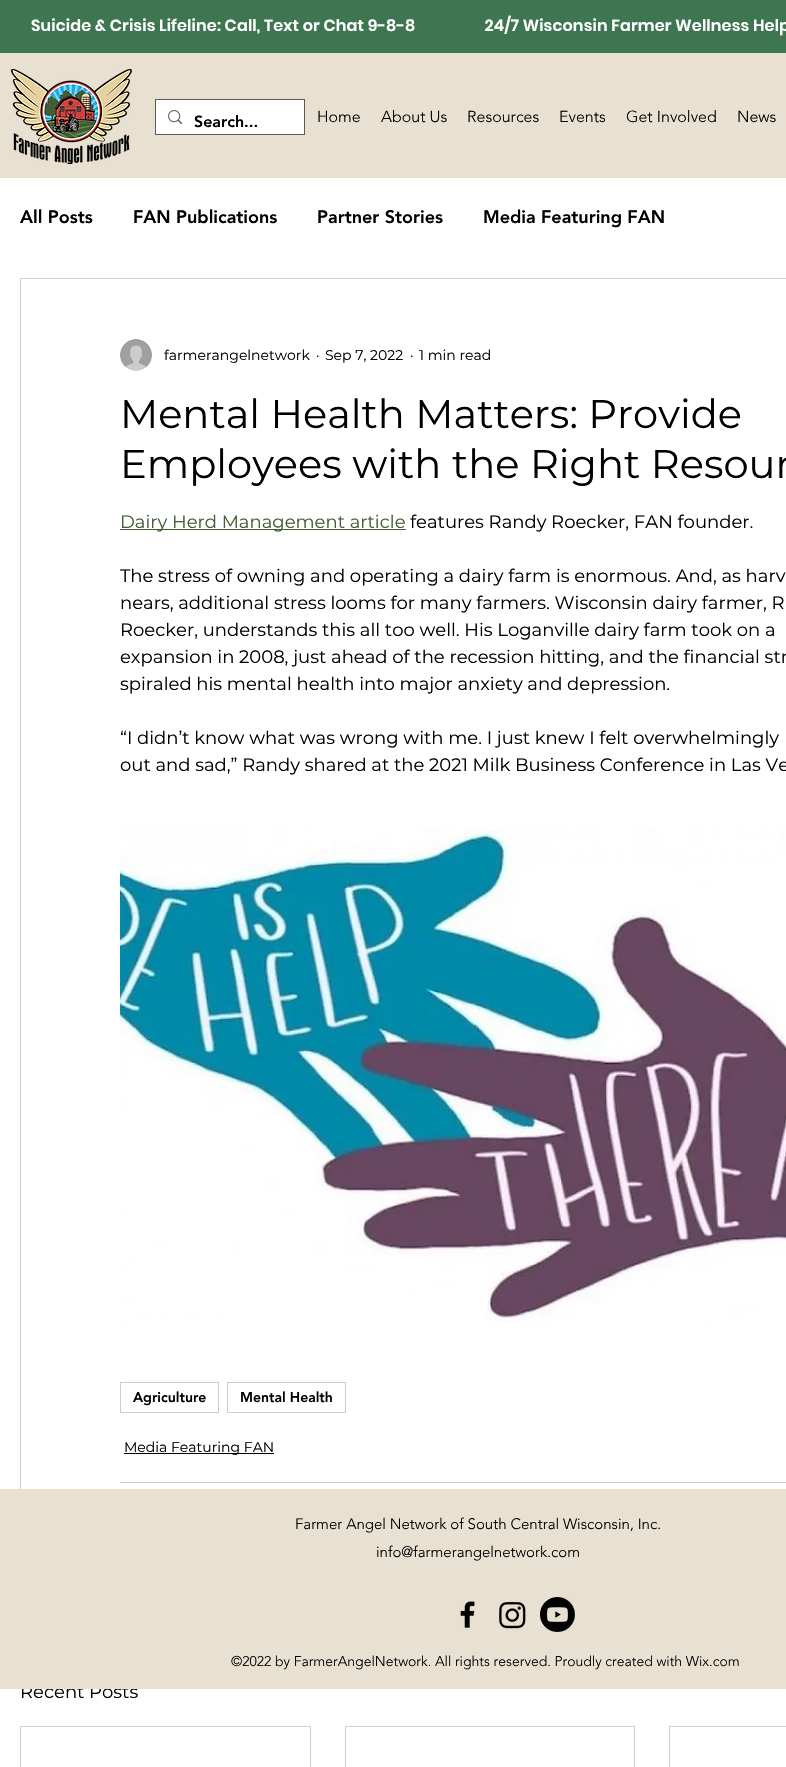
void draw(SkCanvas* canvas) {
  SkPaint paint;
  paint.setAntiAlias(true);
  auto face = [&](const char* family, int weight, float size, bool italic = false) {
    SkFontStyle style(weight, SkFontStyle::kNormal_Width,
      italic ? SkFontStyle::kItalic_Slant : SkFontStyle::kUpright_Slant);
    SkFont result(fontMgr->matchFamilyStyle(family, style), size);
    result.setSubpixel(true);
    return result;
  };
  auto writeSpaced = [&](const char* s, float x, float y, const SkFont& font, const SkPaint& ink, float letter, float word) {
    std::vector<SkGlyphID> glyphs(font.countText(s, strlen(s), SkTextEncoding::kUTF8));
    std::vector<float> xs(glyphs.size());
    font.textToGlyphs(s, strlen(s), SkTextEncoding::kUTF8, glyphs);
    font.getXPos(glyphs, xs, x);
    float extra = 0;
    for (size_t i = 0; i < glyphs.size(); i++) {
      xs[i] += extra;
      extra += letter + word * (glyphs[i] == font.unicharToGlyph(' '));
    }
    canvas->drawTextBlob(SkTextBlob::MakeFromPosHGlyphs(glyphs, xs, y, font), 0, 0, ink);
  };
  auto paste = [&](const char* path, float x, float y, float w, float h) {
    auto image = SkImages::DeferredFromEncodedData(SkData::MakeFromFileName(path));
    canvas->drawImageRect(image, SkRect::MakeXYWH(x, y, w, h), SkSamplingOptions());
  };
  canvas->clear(0xffffffff);
  paint.setColor(0xff3f7652);
  canvas->drawRect(SkRect::MakeXYWH(0, 0, 786, 53), paint);
  paint.setColor(0xffe8e1d1);
  canvas->drawRect(SkRect::MakeXYWH(0, 53, 786, 125), paint);
  paste("img/1.png", 11, 69, 121, 95);
  paint.setStroke(true);
  paint.setStrokeWidth(1);
  paint.setColor(0xff5d5a54);
  canvas->drawRect(SkRect::MakeXYWH(155.5f, 99.5f, 149, 35), paint);
  paint.setStroke(false);
  paint.setColor(0xffffffff);
  canvas->drawRect(SkRect::MakeXYWH(156, 100, 148, 34), paint);
  paste("img/2.png", 168, 110, 14, 14);
  paint.setStroke(true);
  paint.setColor(0xffcfcfcf);
  canvas->drawRect(SkRect::MakeXYWH(20.5f, 278.5f, 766, 1370), paint);
  paste("img/3.png", 120, 339, 32, 32);
  paint.setStroke(false);
  paint.setColor(0xff435d34);
  canvas->drawRect(SkRect::MakeXYWH(120, 529, 286, 1), paint);
  paste("img/4.png", 120, 829, 666, 496);
  paint.setStroke(true);
  paint.setColor(0xffcccccc);
  canvas->drawRect(SkRect::MakeXYWH(120.5f, 1382.5f, 98, 30), paint);
  canvas->drawRect(SkRect::MakeXYWH(227.5f, 1382.5f, 118, 30), paint);
  paint.setStroke(false);
  paint.setColor(0xff000000);
  canvas->drawRect(SkRect::MakeXYWH(124, 1453, 150, 1), paint);
  paint.setColor(0xffcccccc);
  canvas->drawRect(SkRect::MakeXYWH(120, 1482, 666, 1), paint);
  paint.setStroke(true);
  paint.setColor(0xffcfcfcf);
  canvas->drawRect(SkRect::MakeXYWH(20.5f, 1726.5f, 290, 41), paint);
  canvas->drawRect(SkRect::MakeXYWH(345.5f, 1726.5f, 289, 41), paint);
  canvas->drawRect(SkRect::MakeXYWH(669.5f, 1726.5f, 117, 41), paint);
  auto f0 = face("Poppins", 600, 16);
  paint.setStroke(false);
  paint.setColor(0xffffffff);
  writeSpaced("Suicide & Crisis Lifeline: Call, Text or Chat 9-8-8                   24/7 Wisconsin Farmer Wellness Help", 31, 31, f0, paint, 0.16f, 0);
  auto f1 = face("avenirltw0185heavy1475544", 900, 16);
  paint.setColor(0xff000000);
  canvas->drawString("Search...", 194, 127, f1, paint);
  auto f2 = face("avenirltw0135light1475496", 300, 16);
  {
    const struct { const char* s; float x, y; } items[] = {
      {"Home", 317, 122},
      {"About Us", 381, 122},
      {"Resources", 467, 122},
      {"Events", 559, 122},
      {"Get Involved", 626, 122},
      {"News", 737, 122},
    };
    for (auto [s, x, y] : items) {
      canvas->drawString(s, x, y, f2, paint);
    }
  }
  auto f3 = face("avenirltw0185heavy1475544", 900, 18);
  {
    const struct { const char* s; float x, y; } items[] = {
      {"All Posts", 20, 223},
      {"FAN Publications", 133, 223},
      {"Partner Stories", 317, 223},
      {"Media Featuring FAN", 483, 223},
    };
    for (auto [s, x, y] : items) {
      canvas->drawString(s, x, y, f3, paint);
    }
  }
  auto f4 = face("Montserrat", 400, 14);
  {
    const struct { const char* s; float x, y; } items[] = {
      {"farmerangelnetwork", 164, 360},
      {"·", 316, 360},
      {"Sep 7, 2022", 325, 360},
      {"·", 410, 360},
      {"1 min read", 419, 360},
    };
    for (auto [s, x, y] : items) {
      canvas->drawString(s, x, y, f4, paint);
    }
  }
  auto f5 = face("Montserrat", 400, 40);
  canvas->drawString("Mental Health Matters: Provide", 120, 428, f5, paint);
  canvas->drawString("Employees with the Right Resour", 120, 478, f5, paint);
  auto f6 = face("Montserrat", 400, 18);
  paint.setColor(0xff435d34);
  canvas->drawString("Dairy Herd Management article", 120, 528, f6, paint);
  paint.setColor(0xff000000);
  {
    const struct { const char* s; float x, y; } items[] = {
      {"features Randy Roecker, FAN founder.", 410, 528},
      {"The stress of owning and operating a dairy farm is enormous. And, as harv", 120, 582},
      {"nears, additional stress looms for many farmers. Wisconsin dairy farmer, R", 120, 609},
      {"Roecker, understands this all too well. His Loganville dairy farm took on a", 120, 636},
      {"expansion in 2008, just ahead of the recession hitting, and the financial str", 120, 663},
      {"spiraled his mental health into major anxiety and depression.", 120, 690},
      {"“I didn’t know what was wrong with me. I just knew I felt overwhelmingly", 120, 744},
      {"out and sad,” Randy shared at the 2021 Milk Business Conference in Las Ve", 120, 771},
    };
    for (auto [s, x, y] : items) {
      canvas->drawString(s, x, y, f6, paint);
    }
  }
  auto f7 = face("avenirltw0185heavy1475544", 900, 14);
  canvas->drawString("Agriculture", 133, 1402, f7, paint);
  canvas->drawString("Mental Health", 240, 1402, f7, paint);
  canvas->drawString("Media Featuring FAN", 124, 1452, f4, paint);
  canvas->drawString("Recent Posts", 20, 1698, f6, paint);
  paint.setColor(0xffe8e1d1);
  canvas->drawRect(SkRect::MakeXYWH(0, 1489, 786, 200), paint);
  auto f8 = face("avenirltw0135light1475496", 300, 15);
  paint.setColor(0xff000000);
  canvas->drawString("Farmer Angel Network of South Central Wisconsin, Inc.", 295, 1529, f8, paint);
  canvas->drawString("info@farmerangelnetwork.com", 376, 1557, f8, paint);
  paste("img/5.png", 460, 1601, 15, 27);
  paste("img/6.png", 499, 1601, 27, 28);
  paste("img/7.png", 540, 1597, 35, 35);
  auto f9 = face("avenirltw0135light1475496", 300, 14);
  canvas->drawString("©2022 by FarmerAngelNetwork. All rights reserved. Proudly created with Wix.com", 231, 1666, f9, paint);
}
